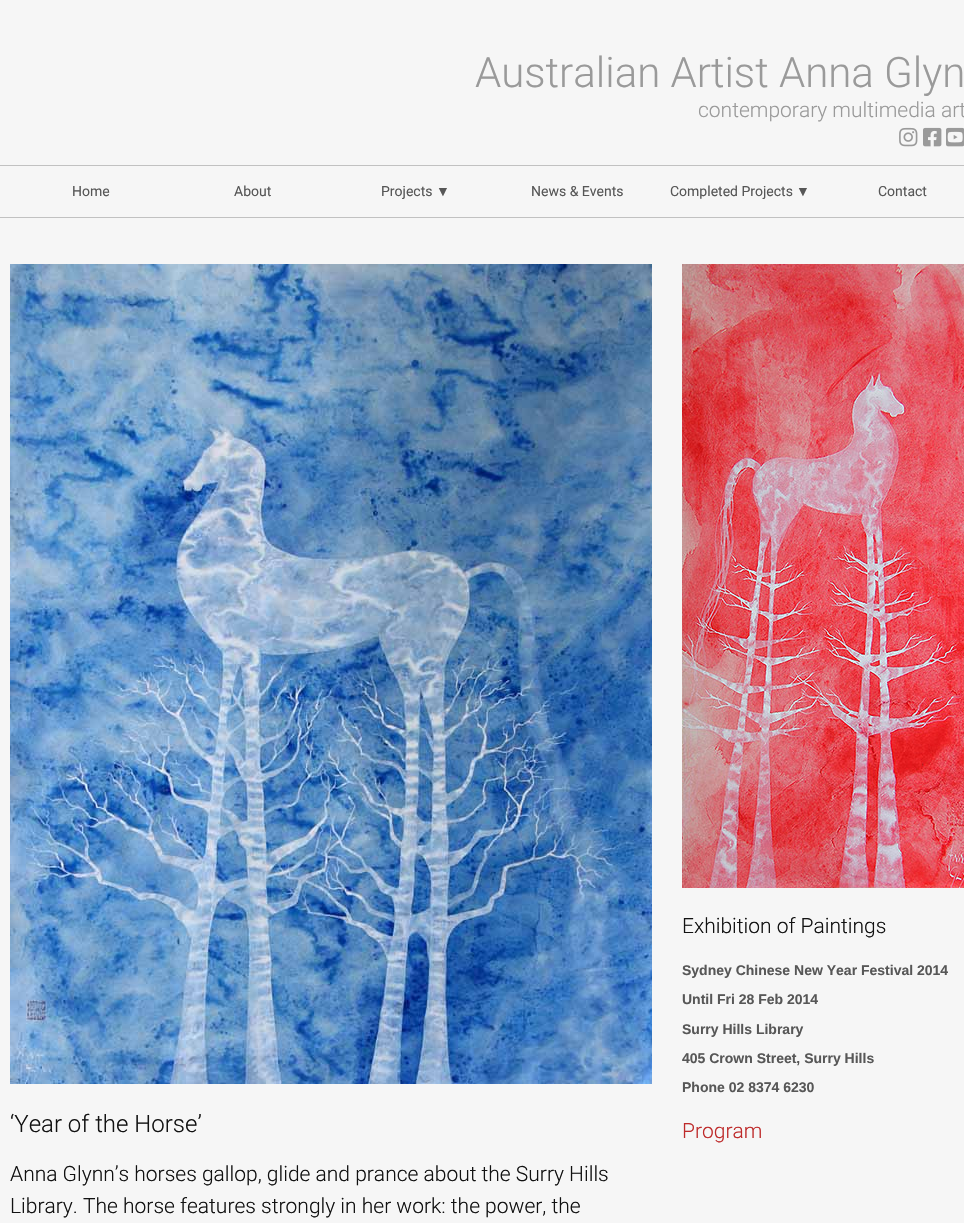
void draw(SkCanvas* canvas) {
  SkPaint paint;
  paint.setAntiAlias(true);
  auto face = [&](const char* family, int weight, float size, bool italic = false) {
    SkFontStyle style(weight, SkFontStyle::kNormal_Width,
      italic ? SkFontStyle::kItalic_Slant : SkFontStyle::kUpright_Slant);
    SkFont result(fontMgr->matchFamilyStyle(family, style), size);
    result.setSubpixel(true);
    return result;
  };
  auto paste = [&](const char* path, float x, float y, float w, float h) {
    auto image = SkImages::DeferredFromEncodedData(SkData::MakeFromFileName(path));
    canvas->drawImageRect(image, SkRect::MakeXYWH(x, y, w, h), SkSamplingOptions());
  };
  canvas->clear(0xfff6f6f6);
  paste("img/1.png", 899, 127, 19, 20);
  paste("img/2.png", 923, 127, 19, 20);
  paste("img/3.png", 946, 127, 18, 20);
  paint.setColor(0xffc1c1c1);
  canvas->drawRect(SkRect::MakeXYWH(0, 165, 964, 1), paint);
  canvas->drawRect(SkRect::MakeXYWH(0, 217, 964, 1), paint);
  paste("img/4.png", 682, 264, 282, 624);
  paste("img/5.png", 10, 264, 642, 820);
  auto f0 = face("Roboto", 300, 42);
  paint.setColor(0xff9a9a9a);
  canvas->drawString("Australian Artist Anna Glyn", 475, 87, f0, paint);
  auto f1 = face("Roboto", 300, 21);
  canvas->drawString("contemporary multimedia art", 698, 117, f1, paint);
  auto f2 = face("Roboto", 400, 14);
  paint.setColor(0xff575757);
  {
    const struct { const char* s; float x, y; } items[] = {
      {"Home", 72, 196},
      {"About", 234, 196},
      {"Projects", 381, 196},
    };
    for (auto [s, x, y] : items) {
      canvas->drawString(s, x, y, f2, paint);
    }
  }
  auto f3 = face("Liberation Sans", 400, 14);
  canvas->drawString("▼", 436, 196, f3, paint);
  canvas->drawString("News & Events", 531, 196, f2, paint);
  canvas->drawString("Completed Projects", 670, 196, f2, paint);
  canvas->drawString("▼", 796, 196, f3, paint);
  canvas->drawString("Contact", 878, 196, f2, paint);
  paint.setColor(0xff121212);
  canvas->drawString("Exhibition of Paintings", 682, 933, f1, paint);
  auto f4 = face("Liberation Sans", 700, 14);
  paint.setColor(0xff575757);
  {
    const struct { const char* s; float x, y; } items[] = {
      {"Sydney Chinese New Year Festival 2014", 682, 975},
      {"Until Fri 28 Feb 2014", 682, 1004},
      {"Surry Hills Library", 682, 1034},
      {"405 Crown Street, Surry Hills", 682, 1063},
      {"Phone 02 8374 6230", 682, 1092},
    };
    for (auto [s, x, y] : items) {
      canvas->drawString(s, x, y, f4, paint);
    }
  }
  paint.setColor(0xffbe2a2a);
  canvas->drawString("Program", 682, 1138, f1, paint);
  auto f5 = face("Roboto", 300, 24);
  paint.setColor(0xff121212);
  canvas->drawString("‘Year of the Horse’", 10, 1132, f5, paint);
  canvas->drawString("Anna Glynn’s horses gallop, glide and prance about the Surry Hills", 10, 1181, f1, paint);
  canvas->drawString("Library. The horse features strongly in her work: the power, the", 10, 1213, f1, paint);
}
